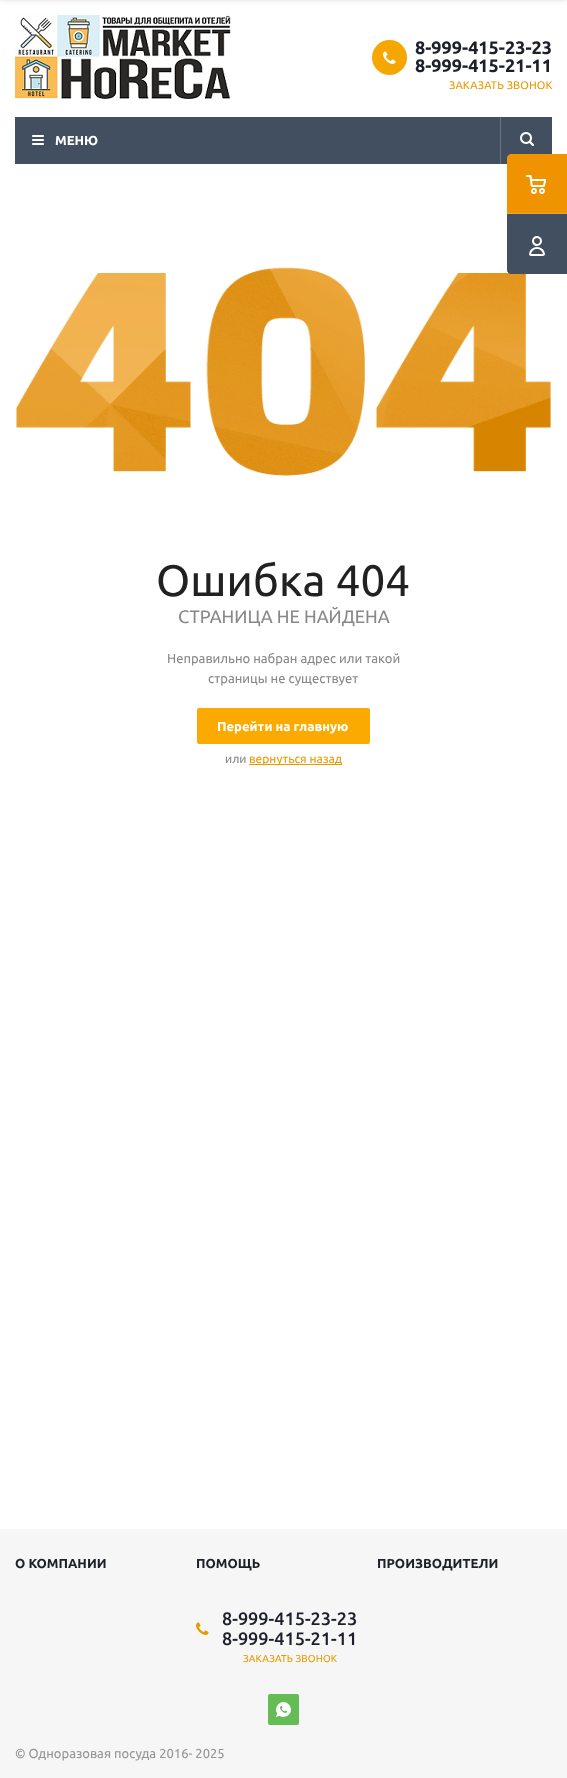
<?xml version="1.0" encoding="UTF-8"?>
<svg xmlns="http://www.w3.org/2000/svg" xmlns:xlink="http://www.w3.org/1999/xlink" width="567" height="1778">
  <rect width="100%" height="100%" fill="#ffffff" />
  <rect y="-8" width="567" height="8" fill="#000000" fill-opacity="0.14" filter="blur(2.5px)" />
  <image x="15" y="15" width="216" height="84" xlink:href="image1.png" />
  <circle cx="389.5" cy="57.5" r="17.5" fill="#f5a600" />
  <image x="383" y="51" width="13" height="13" xlink:href="image2.png" />
  <rect x="501" y="117" width="51" height="47" fill="#424f60" />
  <rect x="16" y="267" width="536" height="209" fill="#f09300" />
  <image x="15" y="234" width="537" height="277" xlink:href="image7.png" />
  <path d="M 511 154 h 56 v 120 h -56 c -2 0 -4 -2 -4 -4 v -112 c 0 -2 2 -4 4 -4 z" fill="#424f60" />
  <path d="M 511 154 h 56 v 60 h -60 v -56 c 0 -2 2 -4 4 -4 z" fill="#f09300" />
  <image x="526" y="175" width="20" height="19" xlink:href="image3.png" />
  <rect x="507" y="213" width="60" height="1" fill="#eea530" />
  <image x="529" y="236" width="16" height="20" xlink:href="image4.png" />
  <rect x="15" y="117" width="485" height="47" fill="#424f60" />
  <image x="32" y="135" width="12" height="10" xlink:href="image5.png" />
  <rect x="500" y="117" width="1" height="47" fill="#687280" />
  <image x="520" y="132" width="14" height="14" xlink:href="image6.png" />
  <rect x="197" y="708" width="173" height="36" rx="2" fill="#faaa00" />
  <rect x="249" y="764" width="93" height="1" fill="#e69c00" />
  <rect y="1529" width="567" height="249" fill="#f6f6f7" />
  <image x="196" y="1622" width="13" height="13" xlink:href="image8.png" />
  <image x="268" y="1694" width="31" height="31" xlink:href="image9.png" />
  <text x="415" y="54" style="font-family: Ubuntu; font-size: 18px; font-weight: bold; fill: #1d2029">8-999-415-23-23</text>
  <text x="415" y="72" style="font-family: Ubuntu; font-size: 18px; font-weight: bold; fill: #1d2029">8-999-415-21-11</text>
  <text x="449" y="89" style="font-family: Ubuntu; font-size: 11px; letter-spacing: 0.1px; fill: #e69c00">ЗАКАЗАТЬ ЗВОНОК</text>
  <text x="55" y="145" style="font-family: Ubuntu; font-size: 13px; font-weight: bold; fill: #ffffff">МЕНЮ</text>
  <text x="156" y="596" style="font-family: Ubuntu; font-size: 44px; fill: #212121">Ошибка 404</text>
  <text x="178" y="623" style="font-family: Ubuntu; font-size: 18px; fill: #888888">СТРАНИЦА НЕ НАЙДЕНА</text>
  <text x="167" y="663" style="font-family: Ubuntu; font-size: 13px; fill: #888888">Неправильно набран адрес или такой</text>
  <text x="208" y="683" style="font-family: Ubuntu; font-size: 13px; fill: #888888">страницы не существует</text>
  <text x="217" y="731" style="font-family: Ubuntu; font-size: 13px; font-weight: bold; fill: #ffffff">Перейти на главную</text>
  <text x="225" y="763" style="font-family: Ubuntu; font-size: 12px; fill: #888888">или</text>
  <text x="249" y="763" style="font-family: Ubuntu; font-size: 12px; fill: #e69c00">вернуться назад</text>
  <text x="15" y="1568" style="font-family: Ubuntu; font-size: 13px; font-weight: bold; fill: #1d2029">О КОМПАНИИ</text>
  <text x="196" y="1568" style="font-family: Ubuntu; font-size: 13px; font-weight: bold; fill: #1d2029">ПОМОЩЬ</text>
  <text x="377" y="1568" style="font-family: Ubuntu; font-size: 13px; font-weight: bold; fill: #1d2029">ПРОИЗВОДИТЕЛИ</text>
  <text x="222" y="1625" style="font-family: Ubuntu; font-size: 18px; font-weight: 500; fill: #1d2029">8-999-415-23-23</text>
  <text x="222" y="1645" style="font-family: Ubuntu; font-size: 18px; font-weight: 500; fill: #1d2029">8-999-415-21-11</text>
  <text x="243" y="1662" style="font-family: Ubuntu; font-size: 10px; letter-spacing: 0.1px; fill: #e69c00">ЗАКАЗАТЬ ЗВОНОК</text>
  <text x="15" y="1758" style="font-family: Ubuntu; font-size: 13px; fill: #959595">© Одноразовая посуда 2016- 2025</text>
</svg>
